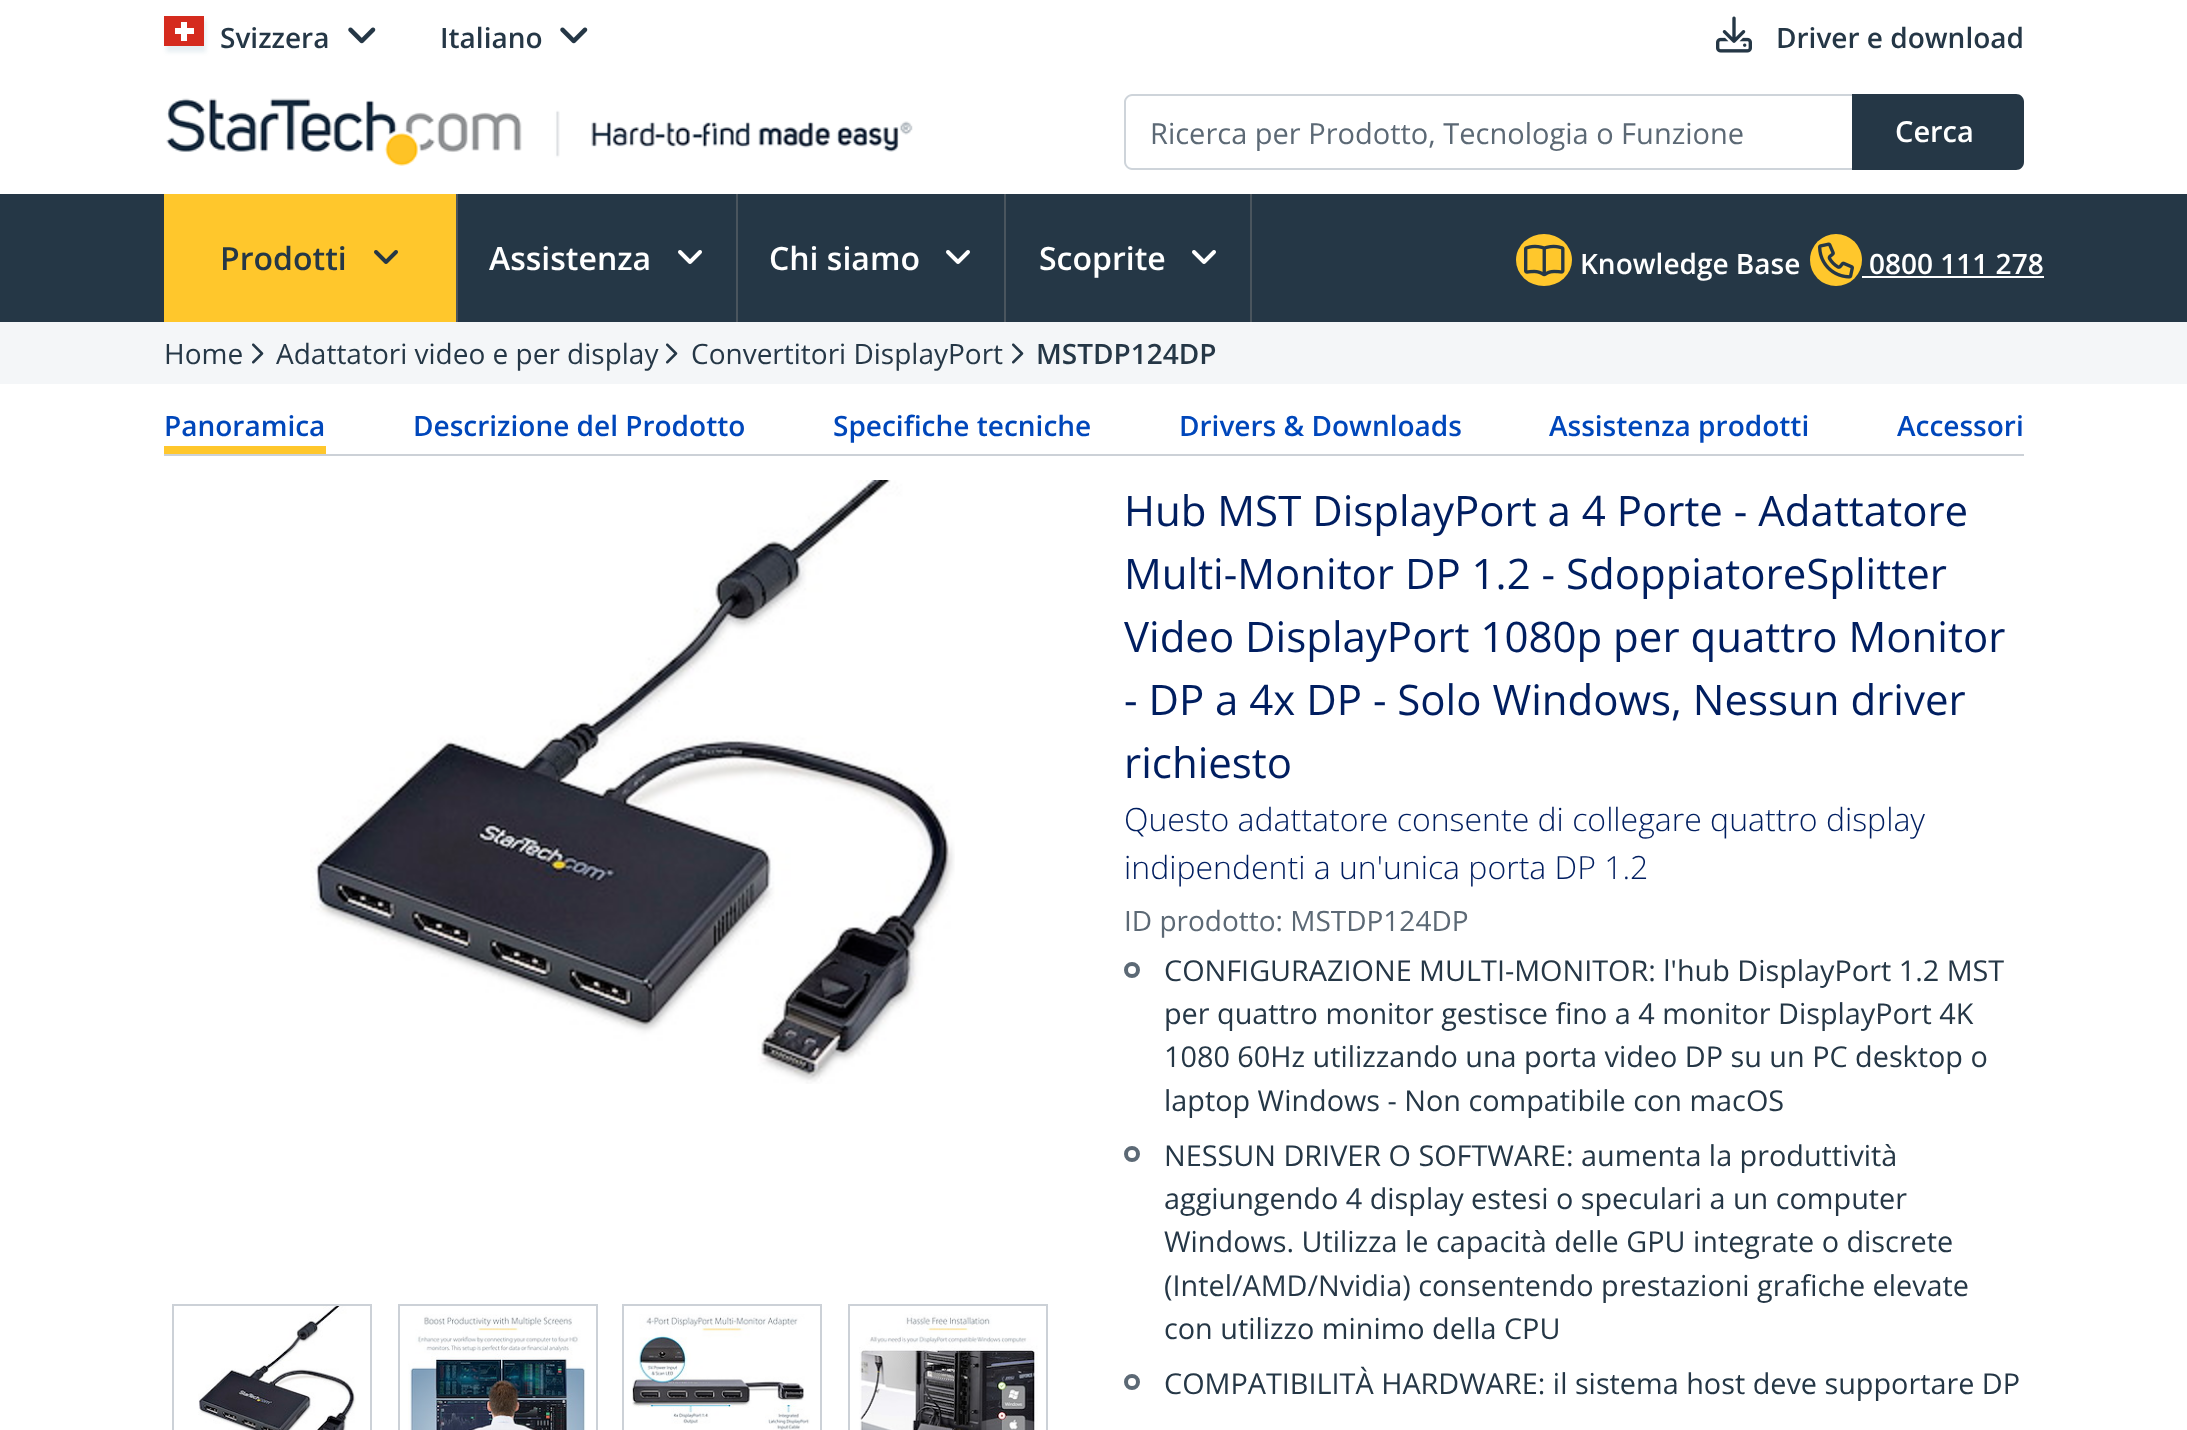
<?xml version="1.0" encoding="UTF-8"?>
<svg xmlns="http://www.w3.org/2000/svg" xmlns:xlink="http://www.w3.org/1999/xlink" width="2187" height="1430">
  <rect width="100%" height="100%" fill="#ffffff" />
  <rect x="166" y="20" width="40" height="32" fill="#0b5780" fill-opacity="0.1" filter="blur(2px)" />
  <rect x="164" y="16" width="40" height="30" fill="#d52b1e" />
  <rect x="175" y="28" width="19" height="6" fill="#ffffff" />
  <rect x="181" y="22" width="6" height="19" fill="#ffffff" />
  <image x="348" y="27" width="28" height="17" xlink:href="image1.png" />
  <image x="560" y="27" width="28" height="17" xlink:href="image1.png" />
  <image x="1716" y="16" width="36" height="37" xlink:href="image2.png" />
  <image x="166" y="98" width="747" height="68" xlink:href="image3.png" />
  <path d="M 1846 94 h 170 c 4.5 0 8 3.5 8 8 v 60 c 0 4.5 -3.5 8 -8 8 h -170 z" fill="#253746" />
  <path d="M 1132 96 h 720 v 72 h -720 c -3.5 0 -6 -2.5 -6 -6 v -60 c 0 -3.5 2.5 -6 6 -6 z" fill="#ffffff" />
  <path d="M 1132 94 h 720 v 76 h -720 c -4 0 -8 -4 -8 -8 v -60 c 0 -4 4 -8 8 -8 z m 0 2 h 720 v 72 h -720 c -3 0 -6 -3 -6 -6 v -60 c 0 -3 3 -6 6 -6 z" fill="#ced4da" fill-rule="evenodd" />
  <rect y="194" width="2187" height="128" fill="#253746" />
  <rect x="164" y="194" width="292" height="128" fill="#ffc72c" />
  <rect x="456" y="194" width="2" height="128" fill="#4a555e" />
  <image x="374" y="250" width="24" height="14" xlink:href="image4.png" />
  <rect x="736" y="194" width="2" height="128" fill="#4a555e" />
  <image x="678" y="250" width="24" height="14" xlink:href="image5.png" />
  <rect x="1004" y="194" width="2" height="128" fill="#4a555e" />
  <image x="946" y="250" width="24" height="14" xlink:href="image5.png" />
  <rect x="1250" y="194" width="2" height="128" fill="#4a555e" />
  <image x="1192" y="250" width="24" height="14" xlink:href="image5.png" />
  <ellipse cx="1544" cy="260" rx="28" ry="26" fill="#ffc72c" />
  <image x="1524" y="244" width="41" height="33" xlink:href="image6.png" />
  <circle cx="1836" cy="260" r="26" fill="#ffc72c" />
  <image x="1818" y="242" width="36" height="37" xlink:href="image7.png" />
  <rect x="1862" y="276" width="182" height="2" fill="#ffffff" />
  <rect y="322" width="2187" height="62" fill="#f4f6f8" />
  <image x="252" y="343" width="12" height="21" xlink:href="image8.png" />
  <image x="666" y="343" width="12" height="21" xlink:href="image8.png" />
  <image x="1012" y="343" width="12" height="21" xlink:href="image8.png" />
  <rect x="164" y="454" width="1860" height="2" fill="#ccd1d7" />
  <rect x="164" y="446" width="162" height="8" fill="#ffc72c" />
  <image x="310" y="480" width="645" height="604" xlink:href="image9.png" />
  <rect x="173" y="1305" width="198" height="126" fill="none" stroke="#ccd1d7" stroke-width="2" />
  <image x="198" y="1306" width="158" height="124" xlink:href="image10.png" />
  <rect x="399" y="1305" width="198" height="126" fill="none" stroke="#ccd1d7" stroke-width="2" />
  <image x="408" y="1314" width="178" height="116" xlink:href="image11.png" />
  <rect x="623" y="1305" width="198" height="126" fill="none" stroke="#ccd1d7" stroke-width="2" />
  <image x="632" y="1314" width="178" height="116" xlink:href="image12.png" />
  <rect x="849" y="1305" width="198" height="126" fill="none" stroke="#ccd1d7" stroke-width="2" />
  <image x="859" y="1314" width="179" height="116" xlink:href="image13.png" />
  <circle cx="1132" cy="970" r="6" fill="none" stroke="#5c6975" stroke-width="4" />
  <circle cx="1132" cy="1154" r="6" fill="none" stroke="#5c6975" stroke-width="4" />
  <circle cx="1132" cy="1382" r="6" fill="none" stroke="#5c6975" stroke-width="4" />
  <text x="220" y="48" style="font-family: Open Sans; font-size: 28px; font-weight: 600; fill: #253746">Svizzera</text>
  <text x="440" y="48" style="font-family: Open Sans; font-size: 28px; font-weight: 600; fill: #253746">Italiano</text>
  <text x="1776" y="48" style="font-family: Open Sans; font-size: 28px; font-weight: 600; fill: #253746">Driver e download</text>
  <text x="1150" y="144" style="font-family: Open Sans; font-size: 29px; fill: #5c6975">Ricerca per Prodotto, Tecnologia o Funzione</text>
  <text x="1895" y="142" style="font-family: Open Sans; font-size: 29px; font-weight: 600; fill: #ffffff">Cerca</text>
  <text x="220" y="270" style="font-family: Open Sans; font-size: 32px; font-weight: 600; fill: #253746">Prodotti</text>
  <text x="489" y="270" style="font-family: Open Sans; font-size: 32px; font-weight: 600; fill: #ffffff">Assistenza</text>
  <text x="769" y="270" style="font-family: Open Sans; font-size: 32px; font-weight: 600; fill: #ffffff">Chi siamo</text>
  <text x="1039" y="270" style="font-family: Open Sans; font-size: 32px; font-weight: 600; fill: #ffffff">Scoprite</text>
  <text x="1580" y="274" style="font-family: Open Sans; font-size: 28px; font-weight: 600; fill: #ffffff">Knowledge Base</text>
  <text x="1869" y="274" style="font-family: Open Sans; font-size: 28px; font-weight: 600; fill: #ffffff">0800 111 278</text>
  <text x="164" y="364" style="font-family: Open Sans; font-size: 28px; fill: #253746">Home</text>
  <text x="276" y="364" style="font-family: Open Sans; font-size: 28px; fill: #253746">Adattatori video e per display</text>
  <text x="691" y="364" style="font-family: Open Sans; font-size: 28px; fill: #253746">Convertitori DisplayPort</text>
  <text x="1036" y="364" style="font-family: Open Sans; font-size: 28px; font-weight: 600; fill: #253746">MSTDP124DP</text>
  <text x="164" y="436" style="font-family: Open Sans; font-size: 28px; font-weight: 600; fill: #0047bb">Panoramica</text>
  <text x="413" y="436" style="font-family: Open Sans; font-size: 28px; font-weight: 600; fill: #0047bb">Descrizione del Prodotto</text>
  <text x="833" y="436" style="font-family: Open Sans; font-size: 28px; font-weight: 600; fill: #0047bb">Specifiche tecniche</text>
  <text x="1179" y="436" style="font-family: Open Sans; font-size: 28px; font-weight: 600; fill: #0047bb">Drivers &amp; Downloads</text>
  <text x="1549" y="436" style="font-family: Open Sans; font-size: 28px; font-weight: 600; fill: #0047bb">Assistenza prodotti</text>
  <text x="1897" y="436" style="font-family: Open Sans; font-size: 28px; font-weight: 600; fill: #0047bb">Accessori</text>
  <text x="1124" y="526" style="font-family: Open Sans; font-size: 42px; fill: #001e60">Hub MST DisplayPort a 4 Porte - Adattatore</text>
  <text x="1124" y="589" style="font-family: Open Sans; font-size: 42px; fill: #001e60">Multi-Monitor DP 1.2 - SdoppiatoreSplitter</text>
  <text x="1124" y="652" style="font-family: Open Sans; font-size: 42px; fill: #001e60">Video DisplayPort 1080p per quattro Monitor</text>
  <text x="1124" y="715" style="font-family: Open Sans; font-size: 42px; fill: #001e60">- DP a 4x DP - Solo Windows, Nessun driver</text>
  <text x="1124" y="778" style="font-family: Open Sans; font-size: 42px; fill: #001e60">richiesto</text>
  <text x="1124" y="831" style="font-family: Open Sans; font-size: 32px; font-weight: 300; fill: #001e60">Questo adattatore consente di collegare quattro display</text>
  <text x="1124" y="879" style="font-family: Open Sans; font-size: 32px; font-weight: 300; fill: #001e60">indipendenti a un'unica porta DP 1.2</text>
  <text x="1124" y="931" style="font-family: Open Sans; font-size: 28px; fill: #5c6975">ID prodotto: MSTDP124DP</text>
  <text x="1164" y="981" style="font-family: Open Sans; font-size: 28.8px; fill: #253746">CONFIGURAZIONE MULTI-MONITOR: l'hub DisplayPort 1.2 MST</text>
  <text x="1164" y="1024" style="font-family: Open Sans; font-size: 28.8px; fill: #253746">per quattro monitor gestisce fino a 4 monitor DisplayPort 4K</text>
  <text x="1164" y="1067" style="font-family: Open Sans; font-size: 28.8px; fill: #253746">1080 60Hz utilizzando una porta video DP su un PC desktop o</text>
  <text x="1164" y="1111" style="font-family: Open Sans; font-size: 28.8px; fill: #253746">laptop Windows - Non compatibile con macOS</text>
  <text x="1164" y="1166" style="font-family: Open Sans; font-size: 28.8px; fill: #253746">NESSUN DRIVER O SOFTWARE: aumenta la produttività</text>
  <text x="1164" y="1209" style="font-family: Open Sans; font-size: 28.8px; fill: #253746">aggiungendo 4 display estesi o speculari a un computer</text>
  <text x="1164" y="1252" style="font-family: Open Sans; font-size: 28.8px; fill: #253746">Windows. Utilizza le capacità delle GPU integrate o discrete</text>
  <text x="1164" y="1296" style="font-family: Open Sans; font-size: 28.8px; fill: #253746">(Intel/AMD/Nvidia) consentendo prestazioni grafiche elevate</text>
  <text x="1164" y="1339" style="font-family: Open Sans; font-size: 28.8px; fill: #253746">con utilizzo minimo della CPU</text>
  <text x="1164" y="1394" style="font-family: Open Sans; font-size: 28.8px; fill: #253746">COMPATIBILITÀ HARDWARE: il sistema host deve supportare DP</text>
</svg>
